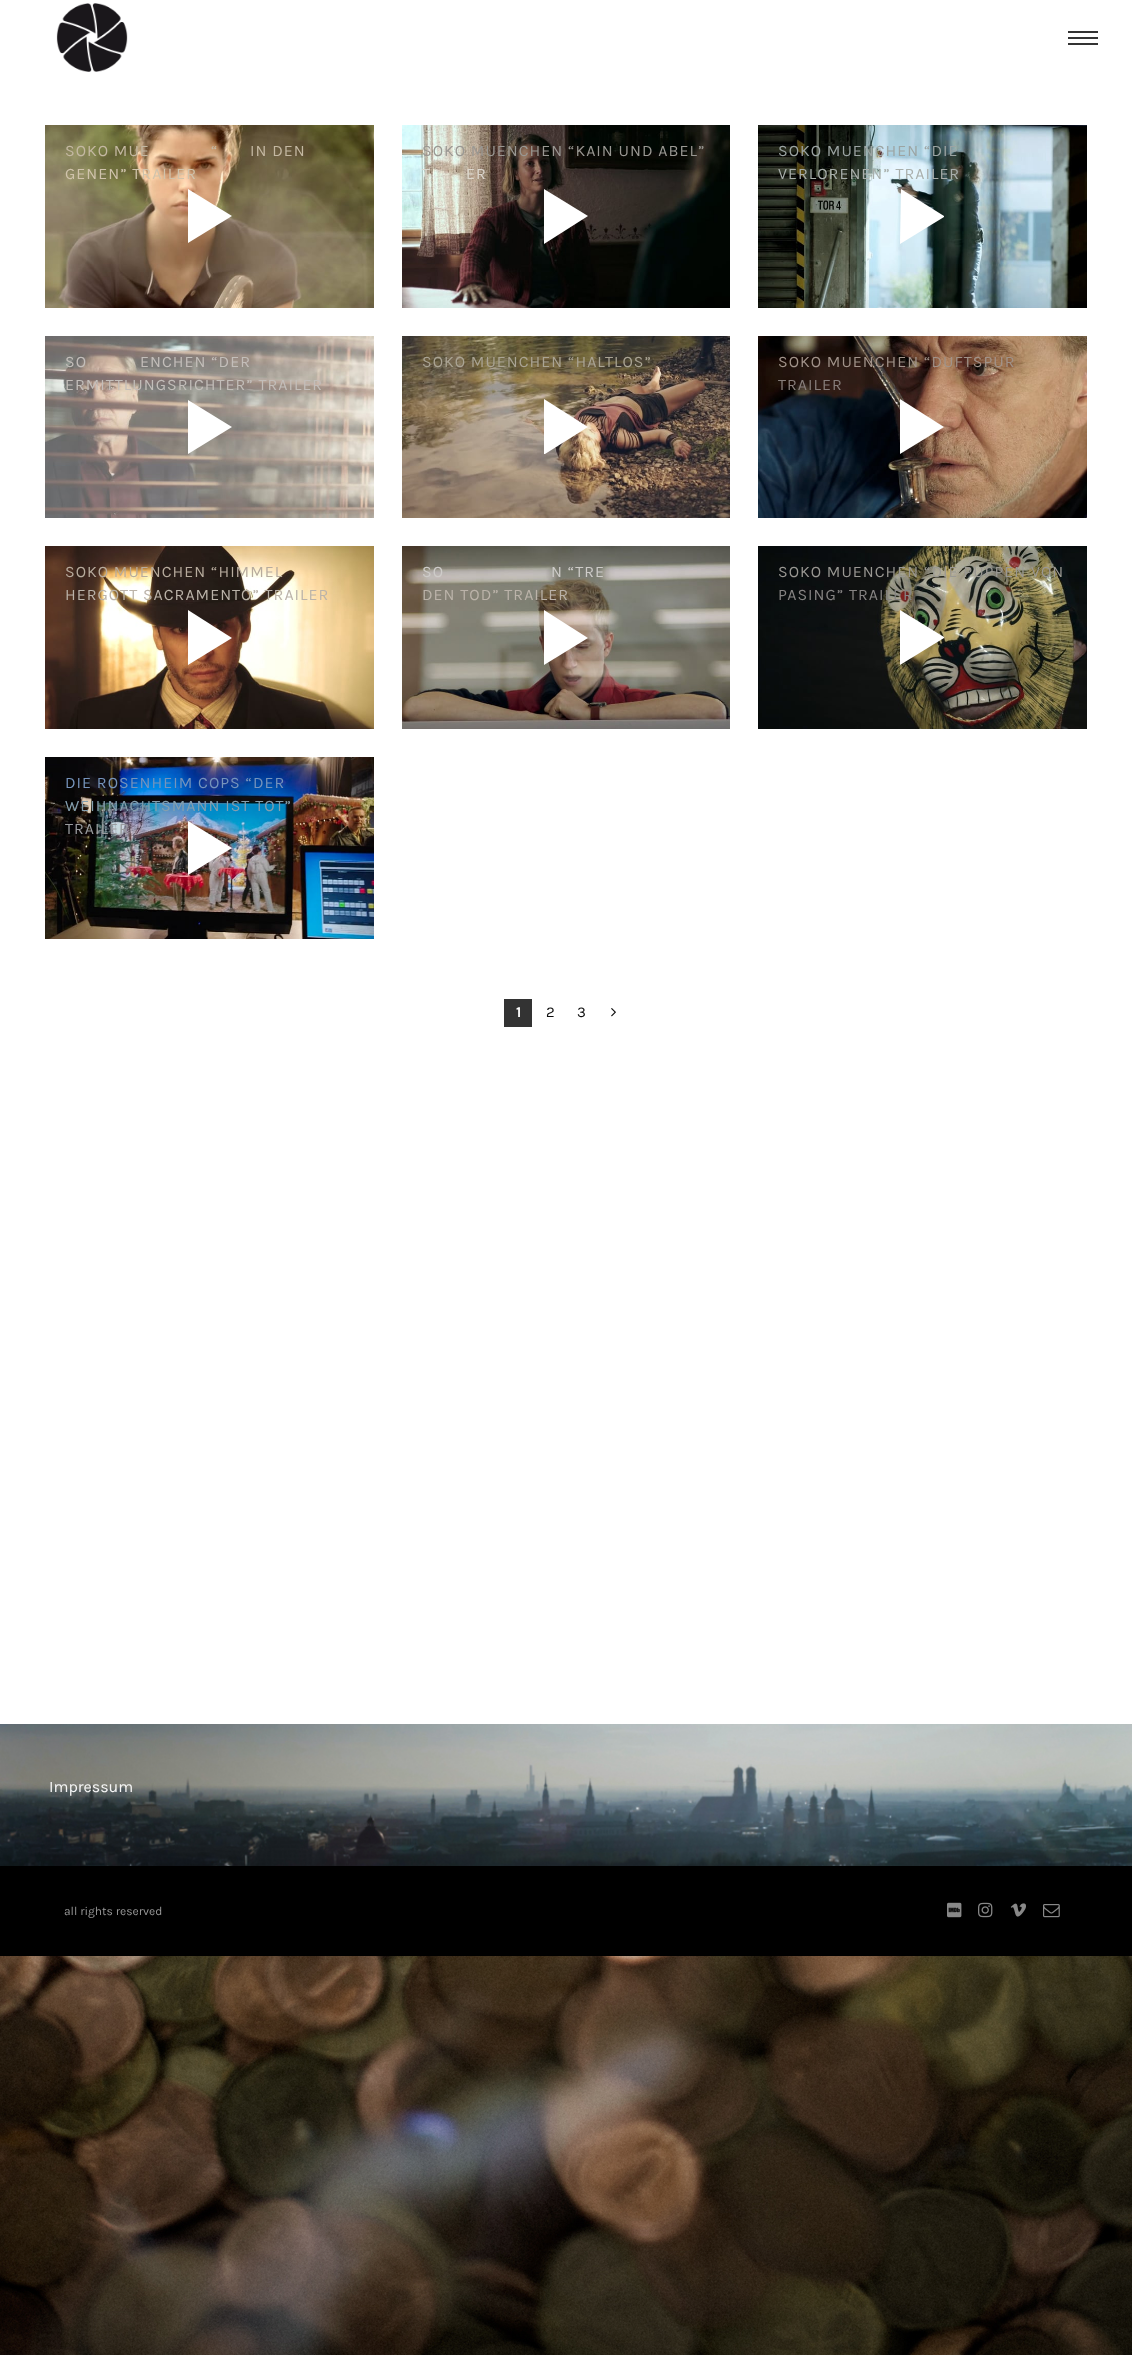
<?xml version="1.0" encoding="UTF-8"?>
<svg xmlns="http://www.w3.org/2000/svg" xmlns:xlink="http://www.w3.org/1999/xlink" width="1132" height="2355">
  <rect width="100%" height="100%" fill="#ffffff" />
  <image x="0" y="1956" width="1132" height="399" xlink:href="image1.png" />
  <image x="56" y="3" width="72" height="69" xlink:href="image2.png" />
  <rect x="1068" y="31" width="30" height="2" fill="#333333" />
  <rect x="1068" y="37" width="30" height="2" fill="#333333" />
  <rect x="1068" y="43" width="30" height="2" fill="#333333" />
  <image x="45" y="125" width="329" height="183" xlink:href="image3.png" />
  <path d="M 188 189 v 54 l 44 -27 z" fill="#ffffff" />
  <image x="402" y="125" width="328" height="183" xlink:href="image4.png" />
  <path d="M 544 189 v 55 l 44 -28 z" fill="#ffffff" />
  <image x="758" y="125" width="329" height="183" xlink:href="image5.png" />
  <path d="M 901 189 l -1 55 l 44 -27 v -1 z" fill="#ffffff" />
  <image x="45" y="336" width="329" height="182" xlink:href="image6.png" />
  <path d="M 188 454 v -54 l 44 27 z" fill="#ffffff" />
  <image x="402" y="336" width="328" height="182" xlink:href="image7.png" />
  <path d="M 545 454 h -1 v -55 l 44 28 z" fill="#ffffff" />
  <image x="758" y="336" width="329" height="182" xlink:href="image8.png" />
  <path d="M 900 399 l 44 28 l -44 27 z" fill="#ffffff" />
  <image x="45" y="546" width="329" height="183" xlink:href="image9.png" />
  <path d="M 188 665 v -55 l 44 28 z" fill="#ffffff" />
  <image x="402" y="546" width="328" height="183" xlink:href="image10.png" />
  <path d="M 544 665 v -55 l 44 28 z" fill="#ffffff" />
  <image x="758" y="546" width="329" height="183" xlink:href="image11.png" />
  <path d="M 900 610 l 44 27 v 1 l -44 27 z" fill="#ffffff" />
  <image x="45" y="757" width="329" height="182" xlink:href="image12.png" />
  <path d="M 188 821 v 54 l 44 -27 z" fill="#ffffff" />
  <rect x="504" y="999" width="28" height="28" fill="#333333" />
  <image x="611" y="1008" width="5" height="9" xlink:href="image13.png" />
  <image x="0" y="1724" width="1132" height="142" xlink:href="image14.png" />
  <rect y="1866" width="1132" height="90" fill="#000000" />
  <image x="947" y="1902" width="15" height="16" xlink:href="image15.png" />
  <image x="978" y="1902" width="15" height="16" xlink:href="image16.png" />
  <image x="1010" y="1903" width="16" height="14" xlink:href="image17.png" />
  <image x="1043" y="1904" width="17" height="14" xlink:href="image18.png" />
  <text x="65" y="156" style="font-family: Karla; font-size: 16px; letter-spacing: 1px; fill: #c4b8a2">SOKO MUE</text>
  <text x="211" y="156" style="font-family: Karla; font-size: 16px; letter-spacing: 1px; fill: #c4b8a2">“</text>
  <text x="250" y="156" style="font-family: Karla; font-size: 16px; letter-spacing: 1px; fill: #c4b8a2">IN DEN</text>
  <text x="65" y="179" style="font-family: Karla; font-size: 16px; letter-spacing: 1px; fill: #d0c3ac">GENEN” TRAILER</text>
  <text x="422" y="156" style="font-family: Karla; font-size: 16px; letter-spacing: 1px; fill: #9a9893">SOKO MUENCHEN “KAIN UND ABEL”</text>
  <text x="422" y="179" style="font-family: Karla; font-size: 16px; letter-spacing: 1px; fill: #dcd7ce">T</text>
  <text x="466" y="179" style="font-family: Karla; font-size: 16px; letter-spacing: 1px; fill: #dcd7ce">ER</text>
  <text x="778" y="156" style="font-family: Karla; font-size: 16px; letter-spacing: 1px; fill: #9ca4a3">SOKO MUENCHEN “DIE</text>
  <text x="778" y="179" style="font-family: Karla; font-size: 16px; letter-spacing: 1px; fill: #a9afac">VERLORENEN” TRAILER</text>
  <text x="65" y="367" style="font-family: Karla; font-size: 16px; letter-spacing: 1px; fill: #c3beba">SO</text>
  <text x="140" y="367" style="font-family: Karla; font-size: 16px; letter-spacing: 1px; fill: #c3beba">ENCHEN “DER</text>
  <text x="65" y="390" style="font-family: Karla; font-size: 16px; letter-spacing: 1px; fill: #c3beba">ERMITTLUNGSRICHTER” TRAILER</text>
  <text x="422" y="367" style="font-family: Karla; font-size: 16px; letter-spacing: 1px; fill: #aaa494">SOKO MUENCHEN “HALTLOS”</text>
  <text x="778" y="367" style="font-family: Karla; font-size: 16px; letter-spacing: 1px; fill: #a1938a">SOKO MUENCHEN “DUFTSPUR</text>
  <text x="778" y="390" style="font-family: Karla; font-size: 16px; letter-spacing: 1px; fill: #877e7b">TRAILER</text>
  <text x="65" y="577" style="font-family: Karla; font-size: 16px; letter-spacing: 1px; fill: #b7ab9d">SOKO MUENCHEN “HIMMEL</text>
  <text x="65" y="600" style="font-family: Karla; font-size: 16px; letter-spacing: 1px; fill: #bbb3a9">HERGOTT SACRAMENTO” TRAILER</text>
  <text x="422" y="577" style="font-family: Karla; font-size: 16px; letter-spacing: 1px; fill: #ceccc9">SO</text>
  <text x="551" y="577" style="font-family: Karla; font-size: 16px; letter-spacing: 1px; fill: #ceccc9">N “TRE</text>
  <text x="422" y="600" style="font-family: Karla; font-size: 16px; letter-spacing: 1px; fill: #bbb3a9">DEN TOD” TRAILER</text>
  <text x="778" y="577" style="font-family: Karla; font-size: 16px; letter-spacing: 1px; fill: #9a9893">SOKO MUENCHEN “DIE PUPPEN VON</text>
  <text x="778" y="600" style="font-family: Karla; font-size: 16px; letter-spacing: 1px; fill: #868483">PASING” TRAILER</text>
  <text x="65" y="788" style="font-family: Karla; font-size: 16px; letter-spacing: 1px; fill: #7694bc">DIE ROSENHEIM COPS “DER</text>
  <text x="65" y="811" style="font-family: Karla; font-size: 16px; letter-spacing: 1px; fill: #859fae">WEIHNACHTSMANN IST TOT”</text>
  <text x="65" y="834" style="font-family: Karla; font-size: 16px; letter-spacing: 1px; fill: #9a9c9f">TRAILER</text>
  <text x="516" y="1017" style="font-family: Karla; font-size: 15px; font-weight: bold; fill: #ffffff">1</text>
  <text x="546" y="1017" style="font-family: Karla; font-size: 15px; fill: #0d0d0d">2</text>
  <text x="577" y="1017" style="font-family: Karla; font-size: 15px; fill: #0d0d0d">3</text>
  <text x="49" y="1792" style="font-family: Karla; font-size: 16px; fill: #f7f7f7">Impressum</text>
  <text x="64" y="1915" style="font-family: Karla; font-size: 12px; fill: #999999">all rights reserved</text>
</svg>
